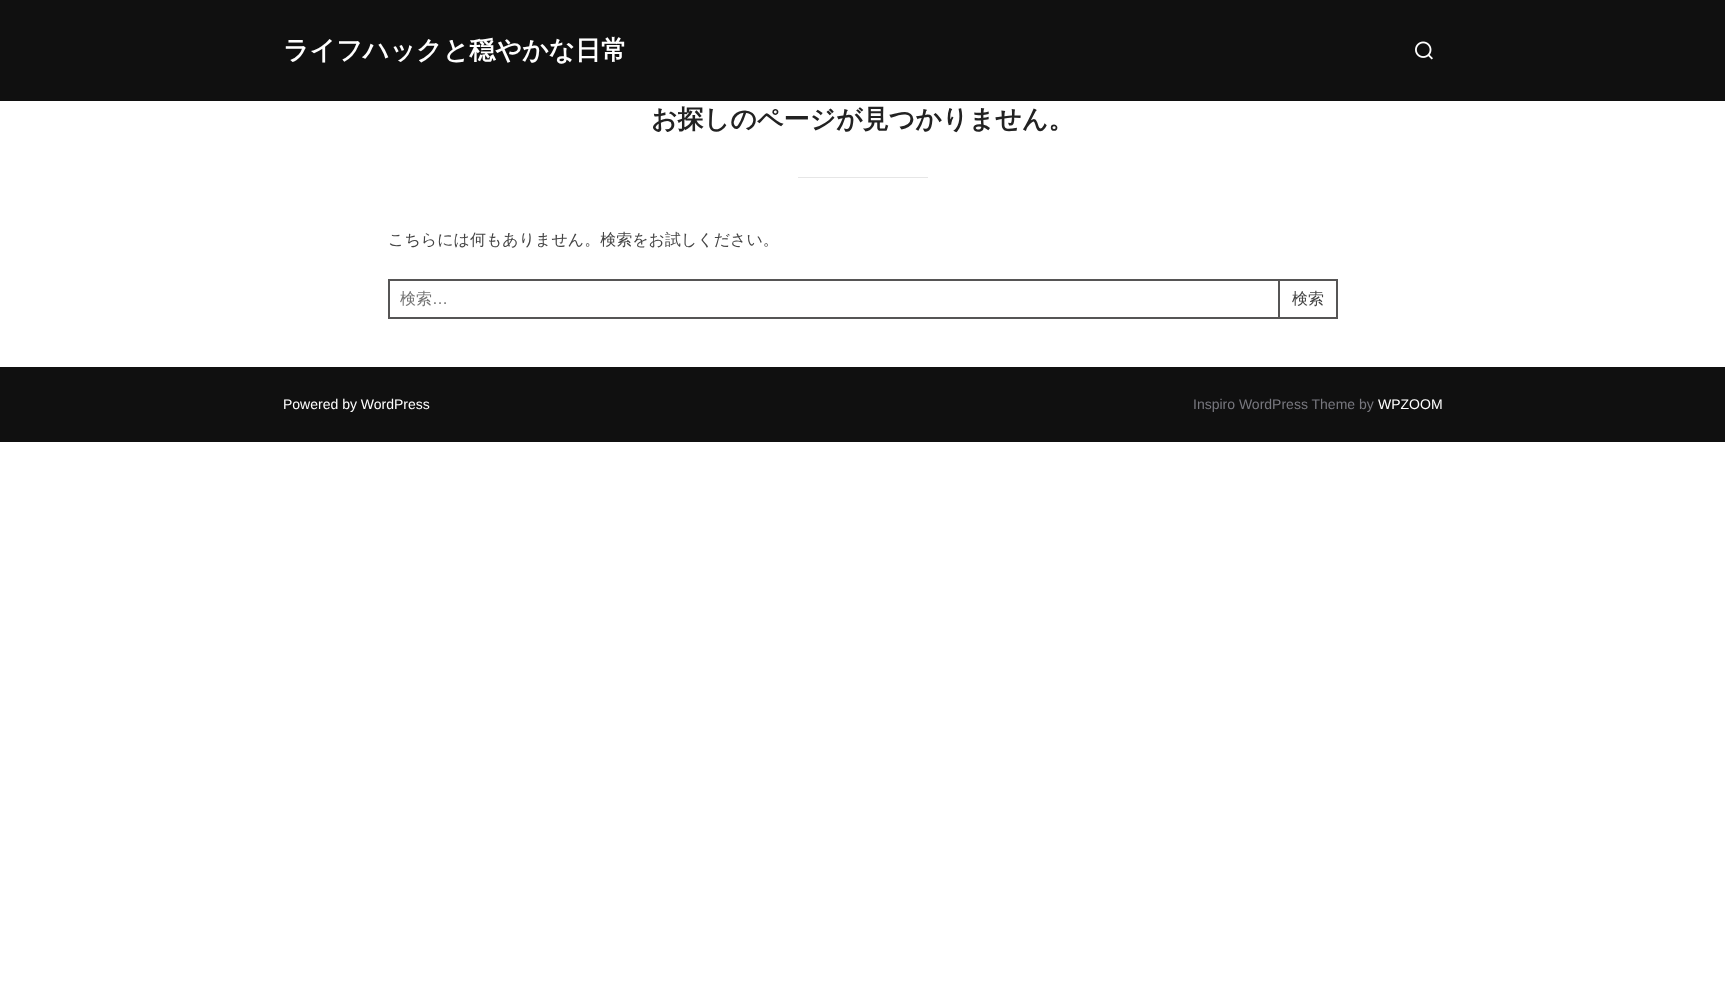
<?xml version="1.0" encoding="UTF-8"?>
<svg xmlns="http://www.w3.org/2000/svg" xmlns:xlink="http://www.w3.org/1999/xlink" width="1725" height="1000">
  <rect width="100%" height="100%" fill="#ffffff" />
  <rect width="1725" height="101" fill="#101010" />
  <image x="1415" y="41" width="18" height="19" xlink:href="image1.png" />
  <rect x="798" y="177" width="130" height="1" fill="#e6e6e6" />
  <rect x="389" y="280" width="948" height="38" fill="none" stroke="#565555" stroke-width="2" />
  <rect x="1279" y="280" width="58" height="38" fill="none" stroke="#565555" stroke-width="2" />
  <rect y="367" width="1725" height="75" fill="#101010" />
  <text x="283" y="59" style="font-family: WenQuanYi Zen Hei; font-size: 26px; font-weight: bold; fill: #ffffff">ライフハックと穏やかな日常</text>
  <text x="651" y="128" style="font-family: WenQuanYi Zen Hei; font-size: 26px; font-weight: bold; fill: #222222">お探しのページが見つかりません。</text>
  <text x="388" y="245" style="font-family: WenQuanYi Zen Hei; font-size: 16px; font-weight: 500; fill: #444444">こちらには何もありません。検索をお試しください。</text>
  <text x="400" y="304" style="font-family: WenQuanYi Zen Hei; font-size: 16px; font-weight: 500; fill: #757575">検索</text>
  <text x="432" y="304" style="font-family: Liberation Sans; font-size: 16px; fill: #757575">…</text>
  <text x="1292" y="304" style="font-family: WenQuanYi Zen Hei; font-size: 16px; font-weight: 500; fill: #444444">検索</text>
  <text x="283" y="409" style="font-family: Liberation Sans; font-size: 14px; fill: #ffffff">Powered by WordPress</text>
  <text x="1193" y="409" style="font-family: Liberation Sans; font-size: 14px; fill: #78787f">Inspiro WordPress Theme by</text>
  <text x="1378" y="409" style="font-family: Liberation Sans; font-size: 14px; fill: #ffffff">WPZOOM</text>
</svg>
